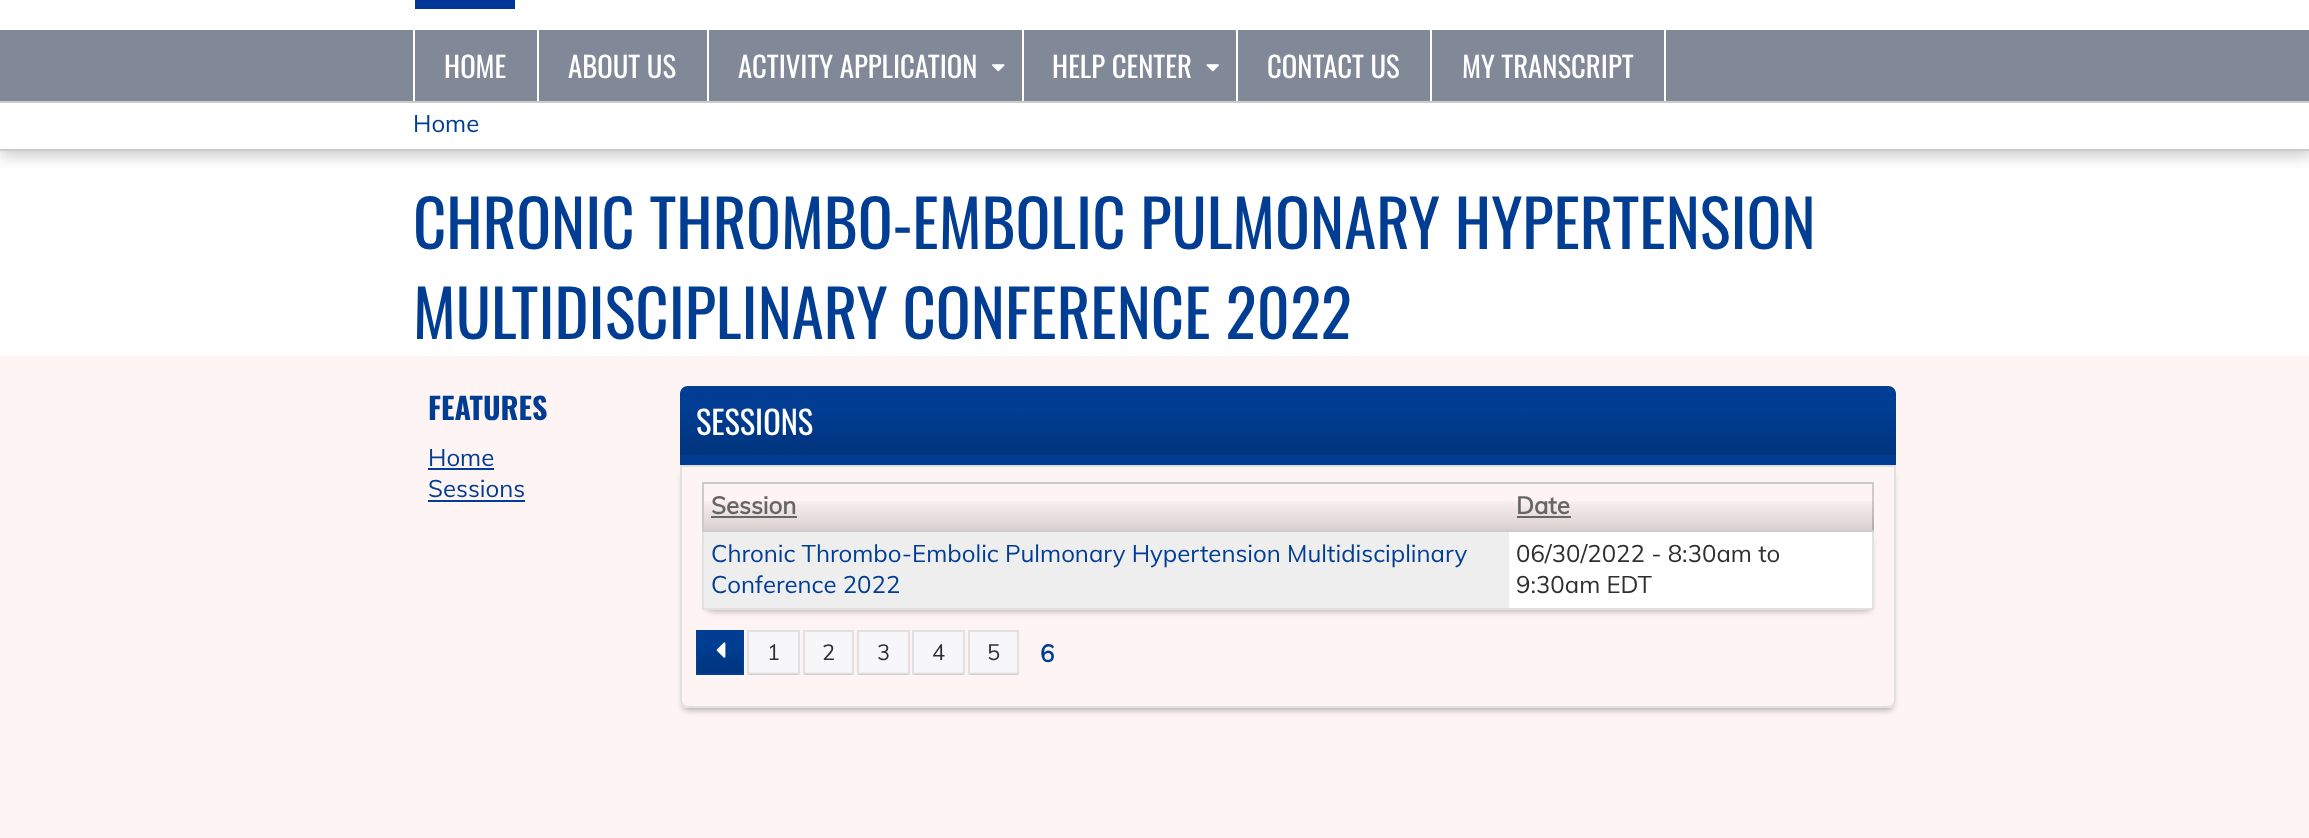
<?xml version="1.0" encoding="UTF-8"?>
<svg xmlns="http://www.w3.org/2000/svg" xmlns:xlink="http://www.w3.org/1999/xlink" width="2309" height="838">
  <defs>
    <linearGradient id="g1" gradientUnits="userSpaceOnUse" x1="1288" y1="455" x2="1288" y2="386"><stop offset="0" stop-color="#000000" stop-opacity="0.15" /><stop offset="0.7" stop-color="#000000" stop-opacity="0" /></linearGradient>
    <clipPath id="clip1"><path d="M 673 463 h 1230 v 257 h -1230 z m 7 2 h 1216 v 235 c 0 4.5 -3.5 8 -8 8 h -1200 c -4.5 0 -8 -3.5 -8 -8 z" clip-rule="evenodd" /></clipPath>
    <linearGradient id="g2" gradientUnits="userSpaceOnUse" x1="1106" y1="530" x2="1106" y2="482"><stop offset="0" stop-color="#000000" stop-opacity="0.15" /><stop offset="0.7" stop-color="#000000" stop-opacity="0" /></linearGradient>
    <linearGradient id="g3" gradientUnits="userSpaceOnUse" x1="1691" y1="530" x2="1691" y2="482"><stop offset="0" stop-color="#000000" stop-opacity="0.15" /><stop offset="0.7" stop-color="#000000" stop-opacity="0" /></linearGradient>
    <linearGradient id="g4" gradientUnits="userSpaceOnUse" x1="720" y1="674" x2="720" y2="632"><stop offset="0" stop-color="#00347d" /><stop offset="0.7" stop-color="#003d93" /></linearGradient>
    <linearGradient id="g5" gradientUnits="userSpaceOnUse" x1="773" y1="675" x2="773" y2="632"><stop offset="0" stop-color="#c6c6c8" /><stop offset="0.07" stop-color="#f7f7fa" /></linearGradient>
    <linearGradient id="g6" gradientUnits="userSpaceOnUse" x1="828" y1="675" x2="828" y2="632"><stop offset="0" stop-color="#c6c6c8" /><stop offset="0.07" stop-color="#f7f7fa" /></linearGradient>
    <linearGradient id="g7" gradientUnits="userSpaceOnUse" x1="883" y1="675" x2="883" y2="632"><stop offset="0" stop-color="#c6c6c8" /><stop offset="0.07" stop-color="#f7f7fa" /></linearGradient>
    <linearGradient id="g8" gradientUnits="userSpaceOnUse" x1="938" y1="675" x2="938" y2="632"><stop offset="0" stop-color="#c6c6c8" /><stop offset="0.07" stop-color="#f7f7fa" /></linearGradient>
    <linearGradient id="g9" gradientUnits="userSpaceOnUse" x1="993" y1="675" x2="993" y2="632"><stop offset="0" stop-color="#c6c6c8" /><stop offset="0.07" stop-color="#f7f7fa" /></linearGradient>
  </defs>
  <rect width="100%" height="100%" fill="#fff4f4" />
  <rect width="2309" height="30" fill="#ffffff" />
  <rect x="415" width="100" height="9" fill="#003698" />
  <rect y="151" width="2309" height="205" fill="#ffffff" />
  <rect x="-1" y="104" width="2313" height="52" fill="#000000" fill-opacity="0.2" filter="blur(7.5px)" />
  <rect y="30" width="2309" height="71" fill="#818898" />
  <rect x="537" y="30" width="2" height="71" fill="#ffffff" />
  <rect x="413" y="30" width="2" height="71" fill="#ffffff" />
  <rect x="707" y="30" width="2" height="71" fill="#ffffff" />
  <rect x="1022" y="30" width="2" height="71" fill="#ffffff" />
  <image x="992" y="64" width="13" height="8" xlink:href="image1.png" />
  <rect x="1236" y="30" width="2" height="71" fill="#ffffff" />
  <image x="1206" y="64" width="13" height="8" xlink:href="image2.png" />
  <rect x="1430" y="30" width="2" height="71" fill="#ffffff" />
  <rect x="1664" y="30" width="2" height="71" fill="#ffffff" />
  <rect y="103" width="2309" height="46" fill="#ffffff" />
  <rect y="101" width="2309" height="2" fill="#cccccc" />
  <rect y="149" width="2309" height="2" fill="#cccccc" />
  <rect x="428" y="468" width="66" height="2" fill="#003d93" />
  <rect x="428" y="500" width="97" height="2" fill="#003d93" />
  <path d="M 688 386 h 1200 c 4.5 0 8 3.5 8 8 v 71 h -1216 v -71 c 0 -4.5 3.5 -8 8 -8 z" fill="#003d93" />
  <rect x="680" y="414" width="1216" height="41" fill="url(#g1)" />
  <g clip-path="url(#clip1)">
    <rect x="683" y="473" width="1210" height="237" rx="5" fill="#000000" fill-opacity="0.3" filter="blur(3px)" />
  </g>
  <path d="M 681 466 h 1214 v 234 c 0 4 -3 7 -7 7 h -1200 c -4 0 -7 -3 -7 -7 z" fill="none" stroke="#e1e1e1" stroke-width="2" />
  <rect x="702" y="482" width="1172" height="2" fill="#cccccc" />
  <rect x="707" y="537" width="1164" height="74" rx="5" fill="#000000" fill-opacity="0.3" filter="blur(3px)" />
  <rect x="1872" y="530" width="2" height="79" fill="#e1e1e1" />
  <rect x="1872" y="482" width="2" height="49" fill="#cccccc" />
  <rect x="702" y="608" width="1172" height="2" fill="#e1e1e1" />
  <rect x="702" y="530" width="2" height="79" fill="#e1e1e1" />
  <rect x="702" y="530" width="1172" height="2" fill="#cccccc" />
  <rect x="702" y="482" width="2" height="49" fill="#cccccc" />
  <rect x="704" y="501" width="805" height="29" fill="url(#g2)" />
  <rect x="711" y="516" width="86" height="2" fill="#666666" />
  <rect x="1509" y="501" width="365" height="29" fill="url(#g3)" />
  <rect x="1517" y="516" width="54" height="2" fill="#666666" />
  <rect x="1509" y="532" width="363" height="76" fill="#ffffff" />
  <rect x="704" y="532" width="805" height="76" fill="#eeeeee" />
  <rect x="698" y="632" width="44" height="41" fill="url(#g4)" />
  <rect x="697" y="631" width="46" height="43" fill="none" stroke="#003d93" stroke-width="2" />
  <image x="716" y="642" width="10" height="16" xlink:href="image3.png" />
  <rect x="749" y="632" width="49" height="43" fill="url(#g5)" />
  <rect x="747" y="630" width="53" height="2" fill="#e1e1e1" />
  <rect x="798" y="630" width="2" height="45" fill="#e1e1e1" />
  <rect x="747" y="630" width="2" height="45" fill="#e1e1e1" />
  <rect x="805" y="632" width="47" height="43" fill="url(#g6)" />
  <rect x="803" y="630" width="51" height="2" fill="#e1e1e1" />
  <rect x="852" y="630" width="2" height="45" fill="#e1e1e1" />
  <rect x="803" y="630" width="2" height="45" fill="#e1e1e1" />
  <rect x="859" y="632" width="49" height="43" fill="url(#g7)" />
  <rect x="857" y="630" width="52" height="2" fill="#e1e1e1" />
  <rect x="908" y="630" width="2" height="45" fill="#e1e1e1" />
  <rect x="857" y="630" width="2" height="45" fill="#e1e1e1" />
  <rect x="914" y="632" width="49" height="43" fill="url(#g8)" />
  <rect x="912" y="630" width="53" height="2" fill="#e1e1e1" />
  <rect x="963" y="630" width="2" height="45" fill="#e1e1e1" />
  <rect x="912" y="630" width="2" height="45" fill="#e1e1e1" />
  <rect x="970" y="632" width="47" height="43" fill="url(#g9)" />
  <rect x="968" y="630" width="51" height="2" fill="#e1e1e1" />
  <rect x="1017" y="630" width="2" height="45" fill="#e1e1e1" />
  <rect x="968" y="630" width="2" height="45" fill="#e1e1e1" />
  <text x="444" y="78" style="font-family: Oswald; font-size: 28.75px; fill: #ffffff">HOME</text>
  <text x="568" y="78" style="font-family: Oswald; font-size: 28.75px; fill: #ffffff">ABOUT US</text>
  <text x="738" y="78" style="font-family: Oswald; font-size: 28.75px; fill: #ffffff">ACTIVITY APPLICATION</text>
  <text x="1052" y="78" style="font-family: Oswald; font-size: 28.75px; fill: #ffffff">HELP CENTER</text>
  <text x="1267" y="78" style="font-family: Oswald; font-size: 28.75px; fill: #ffffff">CONTACT US</text>
  <text x="1462" y="78" style="font-family: Oswald; font-size: 28.75px; fill: #ffffff">MY TRANSCRIPT</text>
  <text x="413" y="132" style="font-family: Muli; font-size: 24px; fill: #003d93">Home</text>
  <text x="413" y="249" style="font-family: Oswald; font-size: 64.8px; fill: #003d93">CHRONIC THROMBO-EMBOLIC PULMONARY HYPERTENSION</text>
  <text x="413" y="339" style="font-family: Oswald; font-size: 64.8px; fill: #003d93">MULTIDISCIPLINARY CONFERENCE 2022</text>
  <text x="428" y="420" style="font-family: Oswald; font-size: 30px; font-weight: bold; fill: #003d93">FEATURES</text>
  <text x="428" y="466" style="font-family: Muli; font-size: 24px; fill: #003d93">Home</text>
  <text x="428" y="497" style="font-family: Muli; font-size: 24px; fill: #003d93">Sessions</text>
  <text x="696" y="435" style="font-family: Oswald; font-size: 32.5px; fill: #ffffff">SESSIONS</text>
  <text x="711" y="514" style="font-family: Muli; font-size: 24px; font-weight: bold; fill: #666666">Session</text>
  <text x="1516" y="514" style="font-family: Muli; font-size: 24px; font-weight: bold; fill: #666666">Date</text>
  <text x="711" y="562" style="font-family: Muli; font-size: 24px; fill: #003d93">Chronic Thrombo-Embolic Pulmonary Hypertension Multidisciplinary</text>
  <text x="711" y="593" style="font-family: Muli; font-size: 24px; fill: #003d93">Conference 2022</text>
  <text x="1516" y="562" style="font-family: Muli; font-size: 24px; fill: #2f2f2f">06/30/2022 - 8:30am to</text>
  <text x="1516" y="593" style="font-family: Muli; font-size: 24px; fill: #2f2f2f">9:30am EDT</text>
  <text x="767" y="660" style="font-family: Muli; font-size: 22px; fill: #2f2f2f">1</text>
  <text x="822" y="660" style="font-family: Muli; font-size: 22px; fill: #2f2f2f">2</text>
  <text x="877" y="660" style="font-family: Muli; font-size: 22px; fill: #2f2f2f">3</text>
  <text x="932" y="660" style="font-family: Muli; font-size: 22px; fill: #2f2f2f">4</text>
  <text x="987" y="660" style="font-family: Muli; font-size: 22px; fill: #2f2f2f">5</text>
  <text x="1040" y="662" style="font-family: Muli; font-size: 24px; font-weight: bold; fill: #003d93">6</text>
</svg>
